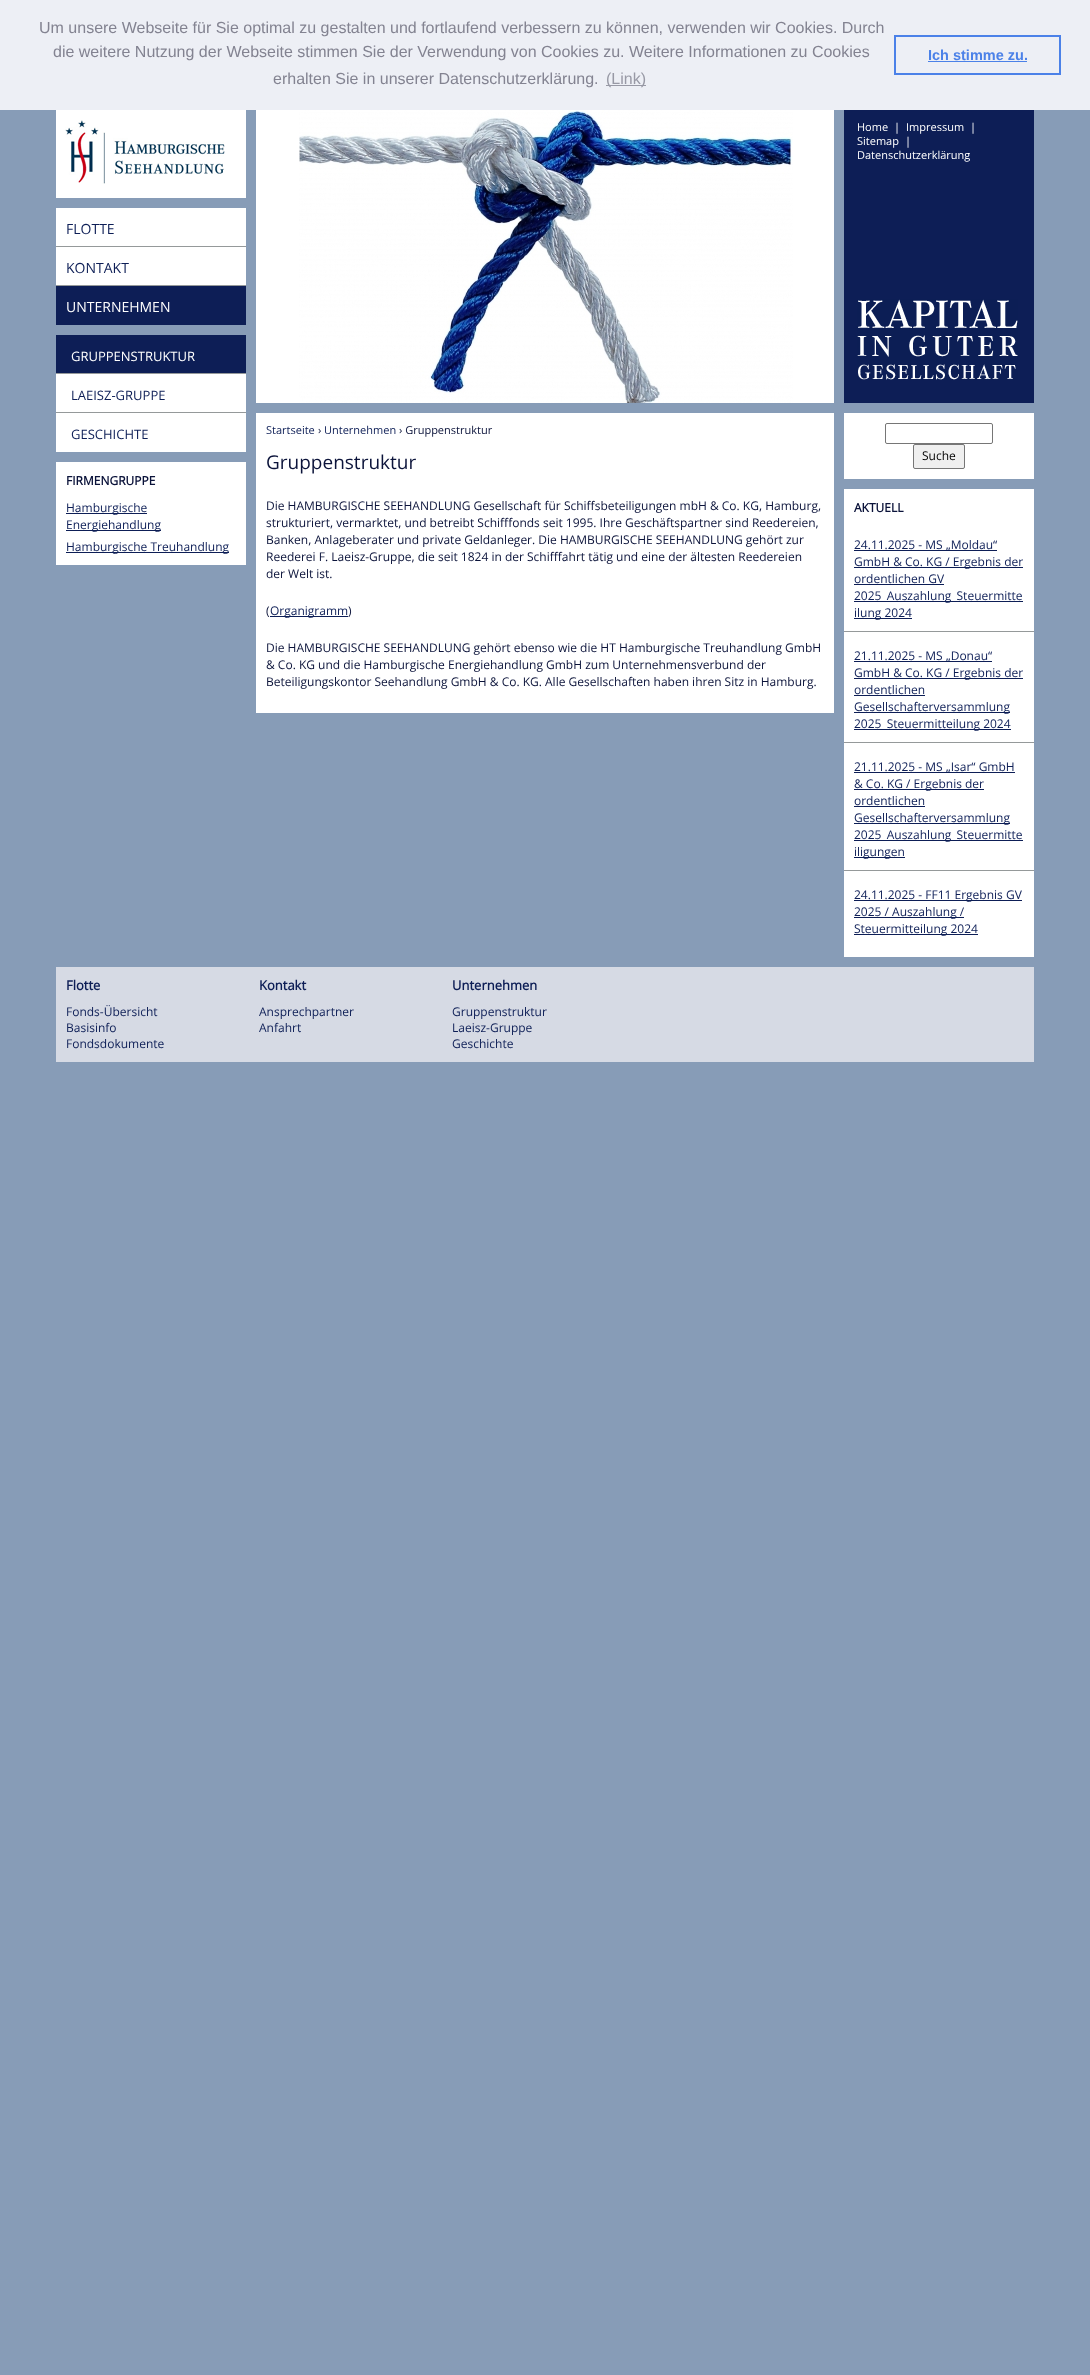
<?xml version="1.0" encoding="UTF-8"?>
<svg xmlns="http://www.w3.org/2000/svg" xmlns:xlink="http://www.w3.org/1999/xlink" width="1090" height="2375">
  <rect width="100%" height="100%" fill="#879cb7" />
  <rect width="1090" height="110" fill="#edeff5" />
  <rect x="606" y="85" width="40" height="1" fill="#9899a5" />
  <rect x="895" y="36" width="165" height="38" fill="none" stroke="#4b81e8" stroke-width="2" />
  <rect x="928" y="61" width="99" height="1" fill="#4b81e8" />
  <rect x="56" y="110" width="190" height="88" fill="#ffffff" />
  <image x="65" y="120" width="160" height="64" xlink:href="image1.png" />
  <rect x="56" y="208" width="190" height="77" fill="#ffffff" />
  <rect x="56" y="246" width="190" height="1" fill="#95999a" />
  <rect x="56" y="285" width="190" height="1" fill="#95999a" />
  <rect x="56" y="286" width="190" height="39" fill="#0d1e56" />
  <rect x="56" y="374" width="190" height="78" fill="#ffffff" />
  <rect x="56" y="335" width="190" height="38" fill="#0d1e56" />
  <rect x="56" y="373" width="190" height="1" fill="#95999a" />
  <rect x="56" y="412" width="190" height="1" fill="#95999a" />
  <rect x="56" y="462" width="190" height="103" fill="#ffffff" />
  <rect x="66" y="513" width="81" height="1" fill="#0d1e56" />
  <rect x="66" y="530" width="95" height="1" fill="#0d1e56" />
  <rect x="66" y="552" width="163" height="1" fill="#0d1e56" />
  <rect x="256" y="110" width="578" height="293" fill="#ffffff" />
  <image x="299" y="110" width="494" height="293" xlink:href="image2.png" />
  <rect x="256" y="413" width="578" height="300" fill="#ffffff" />
  <rect x="270" y="616" width="78" height="1" fill="#0d1e56" />
  <rect x="844" y="110" width="190" height="293" fill="#0d1e56" />
  <image x="857" y="299" width="161" height="81" xlink:href="image3.png" />
  <rect x="844" y="413" width="190" height="66" fill="#ffffff" />
  <rect x="885.5" y="423.5" width="107" height="20" rx="1.5" fill="none" stroke="#767676" />
  <rect x="913.5" y="444.5" width="51" height="24" rx="1.5" fill="#efefef" stroke="#767676" />
  <rect x="844" y="489" width="190" height="468" fill="#ffffff" />
  <rect x="844" y="631" width="190" height="1" fill="#95999a" />
  <rect x="854" y="550" width="143" height="1" fill="#0d1e56" />
  <rect x="854" y="567" width="169" height="1" fill="#0d1e56" />
  <rect x="854" y="584" width="90" height="1" fill="#0d1e56" />
  <rect x="854" y="601" width="169" height="1" fill="#0d1e56" />
  <rect x="854" y="618" width="58" height="1" fill="#0d1e56" />
  <rect x="844" y="742" width="190" height="1" fill="#95999a" />
  <rect x="854" y="661" width="138" height="1" fill="#0d1e56" />
  <rect x="854" y="678" width="169" height="1" fill="#0d1e56" />
  <rect x="854" y="695" width="71" height="1" fill="#0d1e56" />
  <rect x="854" y="712" width="156" height="1" fill="#0d1e56" />
  <rect x="854" y="729" width="157" height="1" fill="#0d1e56" />
  <rect x="844" y="870" width="190" height="1" fill="#95999a" />
  <rect x="854" y="772" width="161" height="1" fill="#0d1e56" />
  <rect x="854" y="789" width="130" height="1" fill="#0d1e56" />
  <rect x="854" y="806" width="71" height="1" fill="#0d1e56" />
  <rect x="854" y="823" width="156" height="1" fill="#0d1e56" />
  <rect x="854" y="840" width="169" height="1" fill="#0d1e56" />
  <rect x="854" y="857" width="51" height="1" fill="#0d1e56" />
  <rect x="854" y="900" width="168" height="1" fill="#0d1e56" />
  <rect x="854" y="917" width="110" height="1" fill="#0d1e56" />
  <rect x="854" y="934" width="124" height="1" fill="#0d1e56" />
  <rect x="56" y="967" width="978" height="95" fill="#d6dae4" />
  <text x="39" y="33" style="font-family: Liberation Sans; font-size: 16px; fill: #838391">Um unsere Webseite für Sie optimal zu gestalten und fortlaufend verbessern zu können, verwenden wir Cookies. Durch</text>
  <text x="53" y="57" style="font-family: Liberation Sans; font-size: 16px; fill: #838391">die weitere Nutzung der Webseite stimmen Sie der Verwendung von Cookies zu. Weitere Informationen zu Cookies</text>
  <text x="273" y="84" style="font-family: Liberation Sans; font-size: 16px; fill: #838391">erhalten Sie in unserer Datenschutzerklärung.</text>
  <text x="606" y="84" style="font-family: Liberation Sans; font-size: 16px; fill: #9899a5">(Link)</text>
  <text x="928" y="60" style="font-family: Liberation Sans; font-size: 14.5px; font-weight: bold; fill: #4b81e8">Ich stimme zu.</text>
  <text x="66" y="234" style="font-family: Open Sans; font-size: 14px; fill: #0d1e56">FLOTTE</text>
  <text x="66" y="273" style="font-family: Open Sans; font-size: 14px; fill: #0d1e56">KONTAKT</text>
  <text x="66" y="312" style="font-family: Open Sans; font-size: 14px; fill: #ffffff">UNTERNEHMEN</text>
  <text x="71" y="361" style="font-family: Open Sans; font-size: 13px; fill: #ffffff">GRUPPENSTRUKTUR</text>
  <text x="71" y="400" style="font-family: Open Sans; font-size: 13px; fill: #0d1e56">LAEISZ-GRUPPE</text>
  <text x="71" y="439" style="font-family: Open Sans; font-size: 13px; fill: #0d1e56">GESCHICHTE</text>
  <text x="66" y="485" style="font-family: Open Sans; font-size: 12px; font-weight: bold; fill: #0b133a">FIRMENGRUPPE</text>
  <text x="66" y="512" style="font-family: Open Sans; font-size: 12px; fill: #0d1e56">Hamburgische</text>
  <text x="66" y="529" style="font-family: Open Sans; font-size: 12px; fill: #0d1e56">Energiehandlung</text>
  <text x="66" y="551" style="font-family: Open Sans; font-size: 12px; fill: #0d1e56">Hamburgische Treuhandlung</text>
  <text x="266" y="434" style="font-family: Open Sans; font-size: 11px; fill: #0d1e56">Startseite</text>
  <text x="318" y="434" style="font-family: Open Sans; font-size: 11px; fill: #0b133a">›</text>
  <text x="324" y="434" style="font-family: Open Sans; font-size: 11px; fill: #0d1e56">Unternehmen</text>
  <text x="399" y="434" style="font-family: Open Sans; font-size: 11px; fill: #0b133a">› Gruppenstruktur</text>
  <text x="266" y="469" style="font-family: Open Sans; font-size: 19px; fill: #0b133a">Gruppenstruktur</text>
  <text x="266" y="510" style="font-family: Open Sans; font-size: 12px; fill: #0b133a">Die HAMBURGISCHE SEEHANDLUNG Gesellschaft für Schiffsbeteiligungen mbH &amp; Co. KG, Hamburg,</text>
  <text x="266" y="527" style="font-family: Open Sans; font-size: 12px; fill: #0b133a">strukturiert, vermarktet, und betreibt Schifffonds seit 1995. Ihre Geschäftspartner sind Reedereien,</text>
  <text x="266" y="544" style="font-family: Open Sans; font-size: 12px; fill: #0b133a">Banken, Anlageberater und private Geldanleger. Die HAMBURGISCHE SEEHANDLUNG gehört zur</text>
  <text x="266" y="561" style="font-family: Open Sans; font-size: 12px; fill: #0b133a">Reederei F. Laeisz-Gruppe, die seit 1824 in der Schifffahrt tätig und eine der ältesten Reedereien</text>
  <text x="266" y="578" style="font-family: Open Sans; font-size: 12px; fill: #0b133a">der Welt ist.</text>
  <text x="266" y="615" style="font-family: Open Sans; font-size: 12px; fill: #0b133a">(</text>
  <text x="270" y="615" style="font-family: Open Sans; font-size: 12px; fill: #0d1e56">Organigramm</text>
  <text x="348" y="615" style="font-family: Open Sans; font-size: 12px; fill: #0b133a">)</text>
  <text x="266" y="652" style="font-family: Open Sans; font-size: 12px; fill: #0b133a">Die HAMBURGISCHE SEEHANDLUNG gehört ebenso wie die HT Hamburgische Treuhandlung GmbH</text>
  <text x="266" y="669" style="font-family: Open Sans; font-size: 12px; fill: #0b133a">&amp; Co. KG und die Hamburgische Energiehandlung GmbH zum Unternehmensverbund der</text>
  <text x="266" y="686" style="font-family: Open Sans; font-size: 12px; fill: #0b133a">Beteiligungskontor Seehandlung GmbH &amp; Co. KG. Alle Gesellschaften haben ihren Sitz in Hamburg.</text>
  <text x="857" y="131" style="font-family: Open Sans; font-size: 11px; fill: #ffffff">Home</text>
  <text x="894" y="131" style="font-family: Open Sans; font-size: 11px; fill: #ffffff">|</text>
  <text x="906" y="131" style="font-family: Open Sans; font-size: 11px; fill: #ffffff">Impressum</text>
  <text x="970" y="131" style="font-family: Open Sans; font-size: 11px; fill: #ffffff">|</text>
  <text x="857" y="145" style="font-family: Open Sans; font-size: 11px; fill: #ffffff">Sitemap</text>
  <text x="905" y="145" style="font-family: Open Sans; font-size: 11px; fill: #ffffff">|</text>
  <text x="857" y="159" style="font-family: Open Sans; font-size: 11px; fill: #ffffff">Datenschutzerklärung</text>
  <text x="922" y="460" style="font-family: Open Sans; font-size: 12px; fill: #000000">Suche</text>
  <text x="854" y="512" style="font-family: Open Sans; font-size: 12px; font-weight: bold; fill: #0b133a">AKTUELL</text>
  <text x="854" y="549" style="font-family: Open Sans; font-size: 12px; fill: #0d1e56">24.11.2025 - MS „Moldau“</text>
  <text x="854" y="566" style="font-family: Open Sans; font-size: 12px; fill: #0d1e56">GmbH &amp; Co. KG / Ergebnis der</text>
  <text x="854" y="583" style="font-family: Open Sans; font-size: 12px; fill: #0d1e56">ordentlichen GV</text>
  <text x="854" y="600" style="font-family: Open Sans; font-size: 12px; fill: #0d1e56">2025_Auszahlung_Steuermitte</text>
  <text x="854" y="617" style="font-family: Open Sans; font-size: 12px; fill: #0d1e56">ilung 2024</text>
  <text x="854" y="660" style="font-family: Open Sans; font-size: 12px; fill: #0d1e56">21.11.2025 - MS „Donau“</text>
  <text x="854" y="677" style="font-family: Open Sans; font-size: 12px; fill: #0d1e56">GmbH &amp; Co. KG / Ergebnis der</text>
  <text x="854" y="694" style="font-family: Open Sans; font-size: 12px; fill: #0d1e56">ordentlichen</text>
  <text x="854" y="711" style="font-family: Open Sans; font-size: 12px; fill: #0d1e56">Gesellschafterversammlung</text>
  <text x="854" y="728" style="font-family: Open Sans; font-size: 12px; fill: #0d1e56">2025_Steuermitteilung 2024</text>
  <text x="854" y="771" style="font-family: Open Sans; font-size: 12px; fill: #0d1e56">21.11.2025 - MS „Isar“ GmbH</text>
  <text x="854" y="788" style="font-family: Open Sans; font-size: 12px; fill: #0d1e56">&amp; Co. KG / Ergebnis der</text>
  <text x="854" y="805" style="font-family: Open Sans; font-size: 12px; fill: #0d1e56">ordentlichen</text>
  <text x="854" y="822" style="font-family: Open Sans; font-size: 12px; fill: #0d1e56">Gesellschafterversammlung</text>
  <text x="854" y="839" style="font-family: Open Sans; font-size: 12px; fill: #0d1e56">2025_Auszahlung_Steuermitte</text>
  <text x="854" y="856" style="font-family: Open Sans; font-size: 12px; fill: #0d1e56">iligungen</text>
  <text x="854" y="899" style="font-family: Open Sans; font-size: 12px; fill: #0d1e56">24.11.2025 - FF11 Ergebnis GV</text>
  <text x="854" y="916" style="font-family: Open Sans; font-size: 12px; fill: #0d1e56">2025 / Auszahlung /</text>
  <text x="854" y="933" style="font-family: Open Sans; font-size: 12px; fill: #0d1e56">Steuermitteilung 2024</text>
  <text x="66" y="990" style="font-family: Open Sans; font-size: 13px; font-weight: bold; fill: #0d1e56">Flotte</text>
  <text x="66" y="1016" style="font-family: Open Sans; font-size: 12px; fill: #0d1e56">Fonds-Übersicht</text>
  <text x="66" y="1032" style="font-family: Open Sans; font-size: 12px; fill: #0d1e56">Basisinfo</text>
  <text x="66" y="1048" style="font-family: Open Sans; font-size: 12px; fill: #0d1e56">Fondsdokumente</text>
  <text x="259" y="990" style="font-family: Open Sans; font-size: 13px; font-weight: bold; fill: #0d1e56">Kontakt</text>
  <text x="259" y="1016" style="font-family: Open Sans; font-size: 12px; fill: #0d1e56">Ansprechpartner</text>
  <text x="259" y="1032" style="font-family: Open Sans; font-size: 12px; fill: #0d1e56">Anfahrt</text>
  <text x="452" y="990" style="font-family: Open Sans; font-size: 13px; font-weight: bold; fill: #0d1e56">Unternehmen</text>
  <text x="452" y="1016" style="font-family: Open Sans; font-size: 12px; fill: #0d1e56">Gruppenstruktur</text>
  <text x="452" y="1032" style="font-family: Open Sans; font-size: 12px; fill: #0d1e56">Laeisz-Gruppe</text>
  <text x="452" y="1048" style="font-family: Open Sans; font-size: 12px; fill: #0d1e56">Geschichte</text>
</svg>
